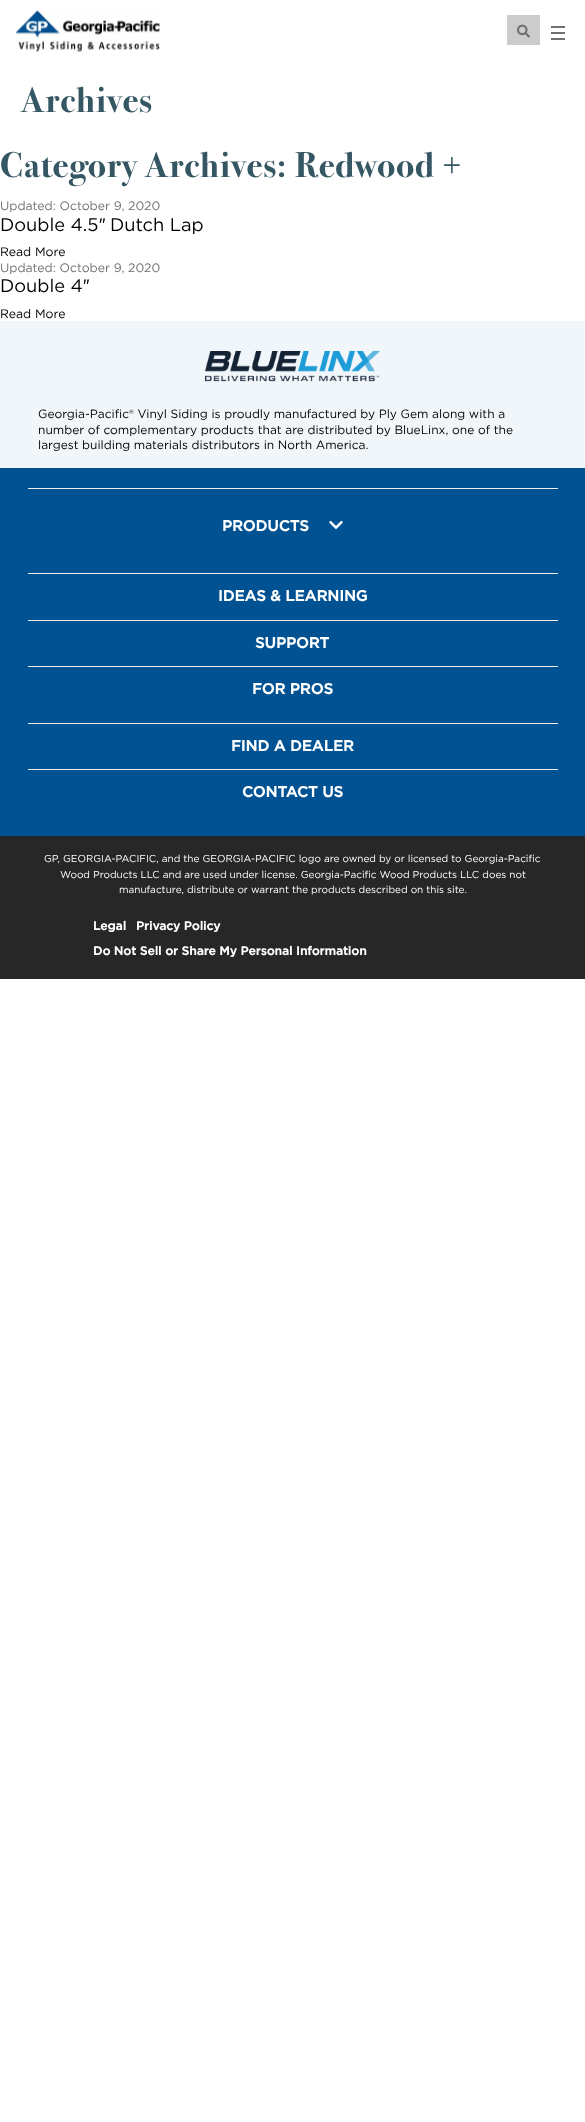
<?xml version="1.0" encoding="UTF-8"?>
<svg xmlns="http://www.w3.org/2000/svg" xmlns:xlink="http://www.w3.org/1999/xlink" width="585" height="2122">
  <rect width="100%" height="100%" fill="#ffffff" />
  <image x="15" y="10" width="145" height="42" xlink:href="image1.png" />
  <rect x="551" y="32" width="14" height="2" fill="#707070" />
  <rect x="551" y="26" width="14" height="2" fill="#707070" />
  <rect x="551" y="38" width="14" height="2" fill="#707070" />
  <rect x="507" y="15" width="33" height="30" fill="#cccccc" />
  <image x="517" y="24" width="13" height="14" xlink:href="image2.png" />
  <rect y="321" width="585" height="147" fill="#f1f6fa" />
  <image x="205" y="351" width="175" height="31" xlink:href="image3.png" />
  <rect y="468" width="585" height="368" fill="#005293" />
  <rect x="28" y="488" width="530" height="1" fill="#eeeeee" />
  <image x="329" y="520" width="14" height="10" xlink:href="image4.png" />
  <rect x="28" y="573" width="530" height="1" fill="#eeeeee" />
  <rect x="28" y="620" width="530" height="1" fill="#eeeeee" />
  <rect x="28" y="666" width="530" height="1" fill="#eeeeee" />
  <rect x="28" y="723" width="530" height="1" fill="#eeeeee" />
  <rect x="28" y="769" width="530" height="1" fill="#eeeeee" />
  <rect y="836" width="585" height="143" fill="#272727" />
  <text x="20" y="112" style="font-family: 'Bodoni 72'; font-size: 36px; font-weight: bold; letter-spacing: 0.75px; fill: #355763">Archives</text>
  <text x="0" y="177" word-spacing="1" style="font-family: 'Bodoni 72'; font-size: 36px; font-weight: bold; letter-spacing: 0.75px; fill: #355763">Category Archives:</text>
  <text x="295" y="177" word-spacing="1" style="font-family: 'Bodoni 72'; font-size: 36px; font-weight: bold; letter-spacing: 0.75px; fill: #355763">Redwood +</text>
  <text x="0" y="210" style="font-family: 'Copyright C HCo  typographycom'; font-size: 12.25px; font-weight: 300; fill: #707070">Updated: October 9, 2020</text>
  <text x="0" y="231" style="font-family: 'Copyright C HCo  typographycom'; font-size: 18.25px; font-weight: 300; fill: #000000">Double 4.5</text>
  <text x="99" y="231" style="font-family: Liberation Sans; font-size: 18.25px; fill: #000000">″</text>
  <text x="110" y="231" style="font-family: 'Copyright C HCo  typographycom'; font-size: 18.25px; font-weight: 300; fill: #000000">Dutch Lap</text>
  <text x="0" y="256" style="font-family: 'Copyright C HCo  typographycom'; font-size: 12.25px; font-weight: 300; fill: #000000">Read More</text>
  <text x="0" y="272" style="font-family: 'Copyright C HCo  typographycom'; font-size: 12.25px; font-weight: 300; fill: #707070">Updated: October 9, 2020</text>
  <text x="0" y="292" style="font-family: 'Copyright C HCo  typographycom'; font-size: 18.25px; font-weight: 300; fill: #000000">Double 4</text>
  <text x="83" y="292" style="font-family: Liberation Sans; font-size: 18.25px; fill: #000000">″</text>
  <text x="0" y="318" style="font-family: 'Copyright C HCo  typographycom'; font-size: 12.25px; font-weight: 300; fill: #000000">Read More</text>
  <text x="38" y="418" style="font-family: 'Copyright C HCo  typographycom'; font-size: 12px; font-weight: 300; fill: #000000">Georgia-Pacific® Vinyl Siding is proudly manufactured by Ply Gem along with a</text>
  <text x="38" y="434" style="font-family: 'Copyright C HCo  typographycom'; font-size: 12px; font-weight: 300; fill: #000000">number of complementary products that are distributed by BlueLinx, one of the</text>
  <text x="38" y="449" style="font-family: 'Copyright C HCo  typographycom'; font-size: 12px; font-weight: 300; fill: #000000">largest building materials distributors in North America.</text>
  <text x="222" y="531" style="font-family: 'Copyright C HCo  typographycom'; font-size: 15px; font-weight: bold; fill: #ffffff">PRODUCTS</text>
  <text x="218" y="601" style="font-family: 'Copyright C HCo  typographycom'; font-size: 15px; font-weight: bold; fill: #ffffff">IDEAS &amp; LEARNING</text>
  <text x="255" y="648" style="font-family: 'Copyright C HCo  typographycom'; font-size: 15px; font-weight: bold; fill: #ffffff">SUPPORT</text>
  <text x="252" y="694" style="font-family: 'Copyright C HCo  typographycom'; font-size: 15px; font-weight: bold; fill: #ffffff">FOR PROS</text>
  <text x="231" y="751" style="font-family: 'Copyright C HCo  typographycom'; font-size: 15px; font-weight: bold; fill: #ffffff">FIND A DEALER</text>
  <text x="242" y="797" style="font-family: 'Copyright C HCo  typographycom'; font-size: 15px; font-weight: bold; fill: #ffffff">CONTACT US</text>
  <text x="44" y="862" style="font-family: 'Copyright C HCo  typographycom'; font-size: 10px; font-weight: 300; fill: #ffffff">GP, GEORGIA-PACIFIC, and the GEORGIA-PACIFIC logo are owned by or licensed to Georgia-Pacific</text>
  <text x="60" y="878" style="font-family: 'Copyright C HCo  typographycom'; font-size: 10px; font-weight: 300; fill: #ffffff">Wood Products LLC and are used under license. Georgia-Pacific Wood Products LLC does not</text>
  <text x="119" y="893" style="font-family: 'Copyright C HCo  typographycom'; font-size: 10px; font-weight: 300; fill: #ffffff">manufacture, distribute or warrant the products described on this site.</text>
  <text x="93" y="930" style="font-family: 'Copyright C HCo  typographycom'; font-size: 12px; font-weight: bold; fill: #ffffff">Legal</text>
  <text x="136" y="930" style="font-family: 'Copyright C HCo  typographycom'; font-size: 12px; font-weight: bold; fill: #ffffff">Privacy Policy</text>
  <text x="93" y="955" style="font-family: 'Copyright C HCo  typographycom'; font-size: 12px; font-weight: bold; fill: #ffffff">Do Not Sell or Share My Personal Information</text>
</svg>
